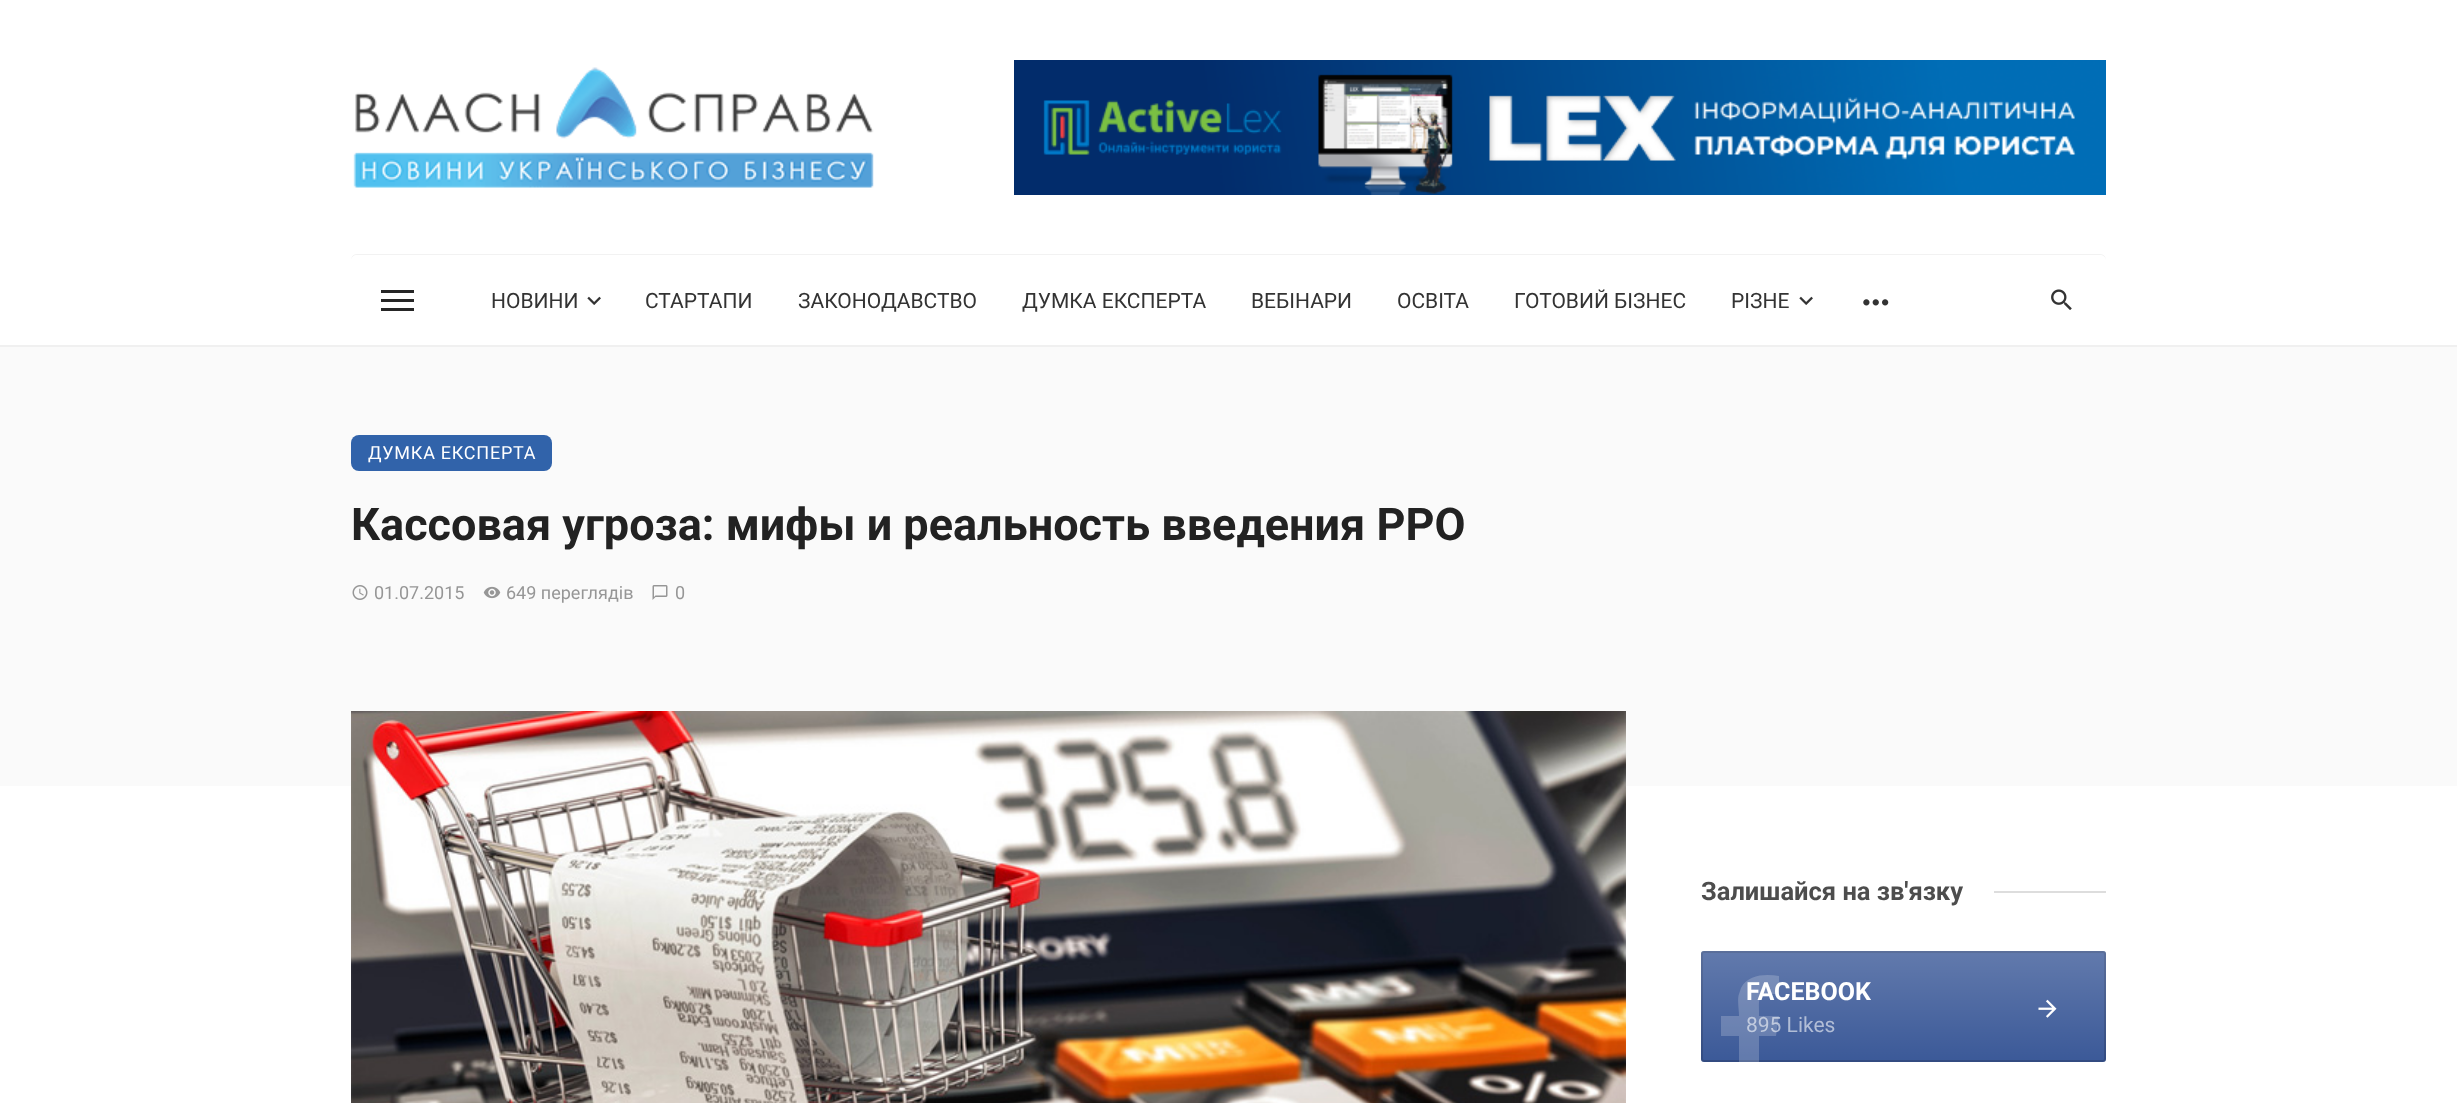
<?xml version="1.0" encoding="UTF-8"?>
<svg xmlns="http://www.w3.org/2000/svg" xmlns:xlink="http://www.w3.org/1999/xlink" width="2457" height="1103">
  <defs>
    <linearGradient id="g1" gradientUnits="userSpaceOnUse" x1="1904" y1="951" x2="1904" y2="1062"><stop offset="0" stop-color="#ffffff" stop-opacity="0.2" /><stop offset="1" stop-color="#ffffff" stop-opacity="0" /></linearGradient>
  </defs>
  <rect width="100%" height="100%" fill="#ffffff" />
  <rect y="345" width="2457" height="2" fill="#f0f0f0" />
  <image x="353" y="67" width="521" height="121" xlink:href="image1.png" />
  <image x="1014" y="60" width="1092" height="135" xlink:href="image2.png" />
  <path d="M 357 254 c -4 0 -6 3 -6 7 c 0 -3 3 -6 6 -6 h 1743 c 3 0 6 3 6 6 c 0 -4 -2 -7 -6 -7 z" fill="#f2f2f2" />
  <rect x="351" y="255" width="1755" height="90" rx="6" fill="#ffffff" />
  <rect x="381" y="299" width="33" height="3" fill="#262626" />
  <rect x="381" y="290" width="33" height="3" fill="#262626" />
  <rect x="381" y="308" width="33" height="3" fill="#262626" />
  <image x="587" y="296" width="14" height="9" xlink:href="image3.png" />
  <image x="1799" y="296" width="14" height="9" xlink:href="image3.png" />
  <image x="1863" y="299" width="26" height="7" xlink:href="image4.png" />
  <image x="2051" y="289" width="21" height="21" xlink:href="image5.png" />
  <rect y="347" width="2457" height="439" fill="#fafafa" />
  <rect x="351" y="435" width="201" height="36" rx="8" fill="#3163aa" />
  <image x="352" y="585" width="16" height="15" xlink:href="image6.png" />
  <image x="483" y="586" width="18" height="13" xlink:href="image7.png" />
  <image x="652" y="585" width="16" height="15" xlink:href="image8.png" />
  <image x="351" y="711" width="1275" height="392" xlink:href="image9.png" />
  <rect x="1994" y="891" width="112" height="2" fill="#dddddd" />
  <rect x="1701" y="951" width="405" height="111" rx="3" fill="#3b5998" />
  <rect x="1702" y="952" width="403" height="109" rx="2" fill="none" stroke="#000000" stroke-opacity="0.15" stroke-width="2" />
  <image x="2038" y="999" width="19" height="19" xlink:href="image10.png" />
  <rect x="1701" y="951" width="405" height="111" rx="3" fill="url(#g1)" />
  <text x="491" y="308" style="font-family: Roboto; font-size: 21px; fill: #333333">НОВИНИ</text>
  <text x="645" y="308" style="font-family: Roboto; font-size: 21px; fill: #333333">СТАРТАПИ</text>
  <text x="798" y="308" style="font-family: Roboto; font-size: 21px; fill: #333333">ЗАКОНОДАВСТВО</text>
  <text x="1022" y="308" style="font-family: Roboto; font-size: 21px; fill: #333333">ДУМКА ЕКСПЕРТА</text>
  <text x="1251" y="308" style="font-family: Roboto; font-size: 21px; fill: #333333">ВЕБІНАРИ</text>
  <text x="1397" y="308" style="font-family: Roboto; font-size: 21px; fill: #333333">ОСВІТА</text>
  <text x="1514" y="308" style="font-family: Roboto; font-size: 21px; fill: #333333">ГОТОВИЙ БІЗНЕС</text>
  <text x="1731" y="308" style="font-family: Roboto; font-size: 21px; fill: #333333">РІЗНЕ</text>
  <text x="368" y="459" style="font-family: Roboto; font-size: 18px; letter-spacing: 0.75px; fill: #ffffff">ДУМКА ЕКСПЕРТА</text>
  <text x="351" y="540" style="font-family: Roboto; font-size: 45px; font-weight: bold; fill: #222222">Кассовая угроза: мифы и реальность введения РРО</text>
  <text x="374" y="599" style="font-family: Roboto; font-size: 18px; fill: #969696">01.07.2015</text>
  <text x="506" y="599" style="font-family: Roboto; font-size: 18px; fill: #969696">649 переглядів</text>
  <text x="675" y="599" style="font-family: Roboto; font-size: 18px; fill: #969696">0</text>
  <text x="1701" y="900" style="font-family: Roboto; font-size: 25.5px; font-weight: bold; fill: #4d4d4d">Залишайся на зв'язку</text>
  <text x="1746" y="1000" style="font-family: Roboto; font-size: 25px; font-weight: bold; fill: #ffffff">FACEBOOK</text>
  <text x="1746" y="1032" style="font-family: Roboto; font-size: 21px; fill: #b1bdd6">895 Likes</text>
  <path d="M 1779 976 v 18 c -22 0 -20 1 -20 22 h 20 l -3 20 h -17 v 26 h -20 v -26 h -18 v -20 h 18 c 0 -6 -2 -17 0 -22 l 2 -6 c 7 -14 25 -14 38 -12 z" fill="#ffffff" fill-opacity="0.2" />
</svg>
